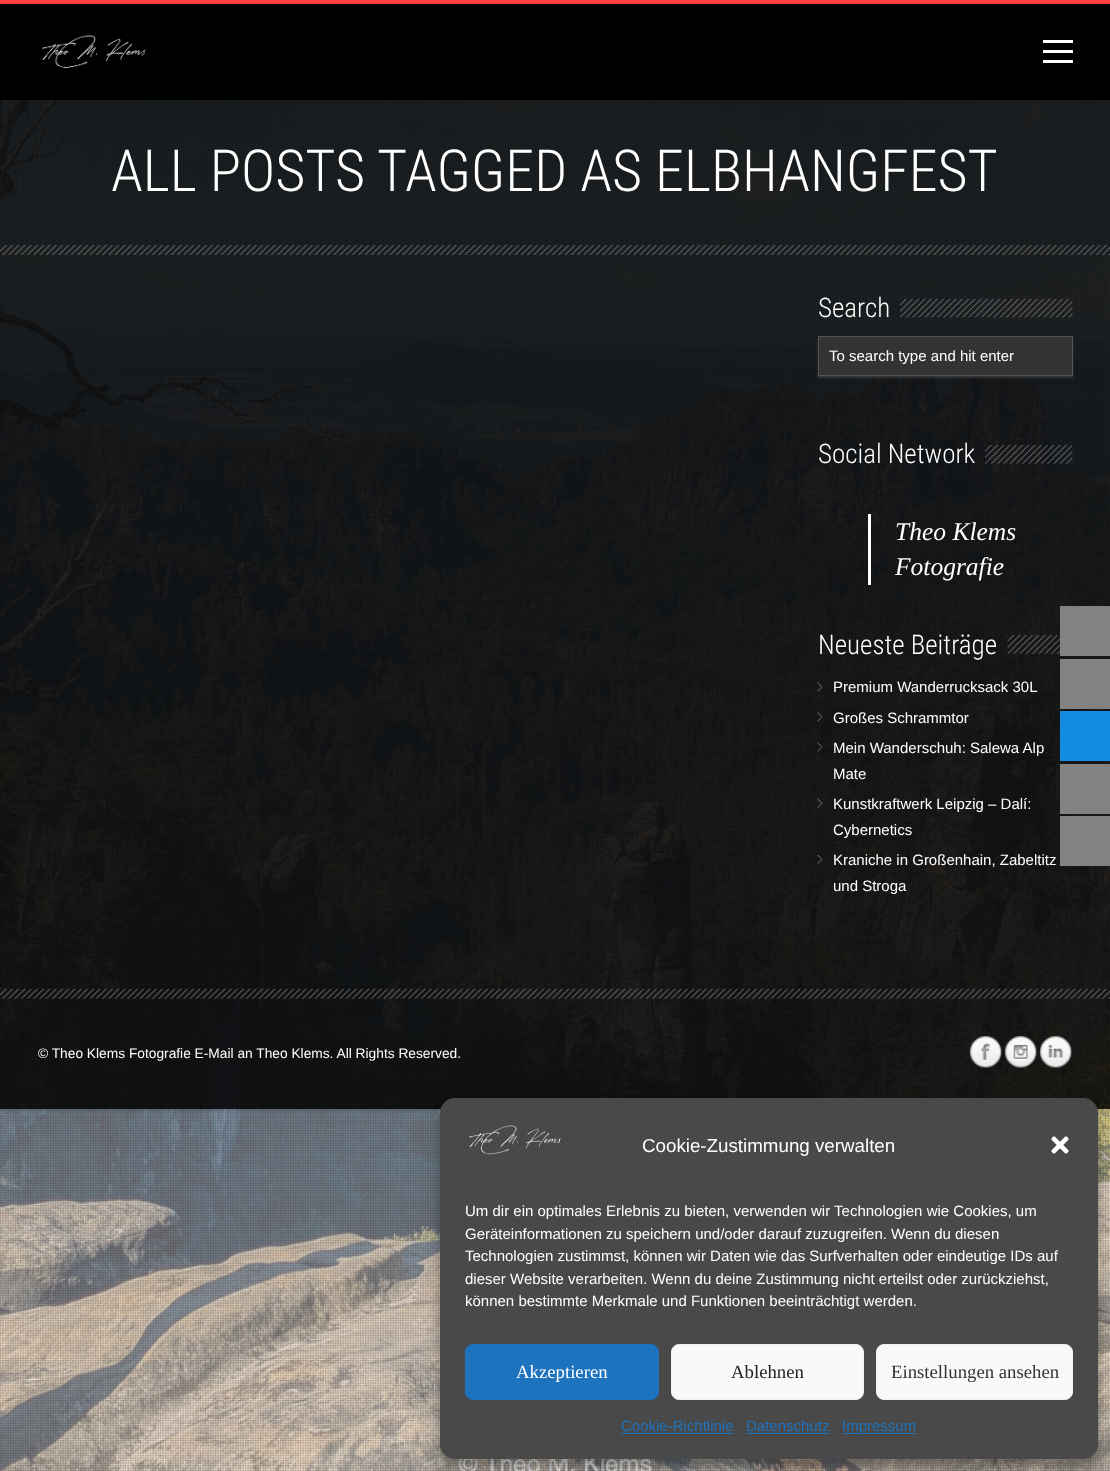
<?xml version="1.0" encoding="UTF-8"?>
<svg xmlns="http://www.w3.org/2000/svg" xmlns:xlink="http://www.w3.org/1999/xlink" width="1110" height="1471">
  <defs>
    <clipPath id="clip1"><path d="M 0 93 h 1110 v 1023 h -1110 z m 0 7 h 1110 v 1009 h -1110 z" clip-rule="evenodd" /></clipPath>
  </defs>
  <rect width="100%" height="100%" fill="#ffffff" />
  <rect width="1110" height="4" fill="#ff3d3d" />
  <rect y="4" width="1110" height="96" fill="#000000" />
  <image x="42" y="34" width="104" height="34" xlink:href="image1.png" />
  <rect x="1043" y="50" width="30" height="3" fill="#ffffff" />
  <rect x="1043" y="40" width="30" height="3" fill="#ffffff" />
  <rect x="1043" y="60" width="30" height="3" fill="#ffffff" />
  <image x="0" y="100" width="1110" height="1371" xlink:href="image2.png" />
  <image x="0" y="100" width="1109" height="1371" xlink:href="image3.png" />
  <g clip-path="url(#clip1)">
    <rect y="100" width="1110" height="1009" fill="#000000" fill-opacity="0.3" filter="blur(2px)" />
  </g>
  <rect y="100" width="1110" height="1009" fill="#000000" fill-opacity="0.85" />
  <image x="0" y="245" width="1110" height="10" xlink:href="image4.png" />
  <image x="900" y="298" width="173" height="20" xlink:href="image5.png" />
  <rect x="818" y="338" width="255" height="40" fill="#b4b4b4" fill-opacity="0.2" filter="blur(1px)" />
  <rect x="818.5" y="336.5" width="254" height="39" fill="#333333" stroke="#555555" />
  <image x="985" y="445" width="88" height="19" xlink:href="image6.png" />
  <rect x="868" y="514" width="3" height="71" fill="#ffffff" />
  <image x="1007" y="635" width="53" height="19" xlink:href="image7.png" />
  <image x="817" y="682" width="6" height="10" xlink:href="image8.png" />
  <image x="817" y="712" width="6" height="10" xlink:href="image9.png" />
  <image x="817" y="742" width="6" height="10" xlink:href="image10.png" />
  <image x="817" y="798" width="6" height="10" xlink:href="image11.png" />
  <image x="817" y="855" width="6" height="9" xlink:href="image12.png" />
  <image x="0" y="988" width="1110" height="11" xlink:href="image13.png" />
  <image x="969" y="1036" width="33" height="32" xlink:href="image14.png" />
  <image x="1004" y="1036" width="33" height="32" xlink:href="image15.png" />
  <image x="1039" y="1036" width="33" height="32" xlink:href="image16.png" />
  <rect x="1060" y="606" width="50" height="50" fill="#828282" />
  <rect x="1060" y="659" width="50" height="50" fill="#828282" />
  <rect x="1060" y="711" width="50" height="50" fill="#128be0" />
  <rect x="1060" y="764" width="50" height="50" fill="#828282" />
  <rect x="1060" y="816" width="50" height="50" fill="#828282" />
  <rect x="440" y="1105" width="658" height="361" rx="15" fill="#000000" fill-opacity="0.23" filter="blur(4px)" />
  <rect x="440" y="1110" width="658" height="361" rx="15" fill="#000000" fill-opacity="0.19" filter="blur(12.5px)" />
  <rect x="440" y="1098" width="658" height="361" rx="15" fill="#494949" />
  <image x="469" y="1125" width="92" height="30" xlink:href="image17.png" />
  <image x="1051" y="1136" width="18" height="18" xlink:href="image18.png" />
  <rect x="465.5" y="1344.5" width="193" height="55" rx="7.5" fill="#1e73be" stroke="#1e73be" />
  <rect x="671.5" y="1344.5" width="192" height="55" rx="7.5" fill="#f9f9f9" stroke="#f2f2f2" />
  <rect x="876.5" y="1344.5" width="196" height="55" rx="7.5" fill="#f9f9f9" stroke="#f2f2f2" />
  <rect x="621" y="1433" width="113" height="1" fill="#1e73be" />
  <rect x="746" y="1433" width="84" height="1" fill="#1e73be" />
  <rect x="843" y="1433" width="73" height="1" fill="#1e73be" />
  <text x="111" y="191" style="font-family: Roboto Condensed; font-size: 58px; font-weight: 300; fill: #ffffff">ALL POSTS TAGGED AS ELBHANGFEST</text>
  <text x="818" y="317" style="font-family: Roboto Condensed; font-size: 27px; font-weight: 300; fill: #ffffff">Search</text>
  <text x="829" y="361" style="font-family: Liberation Sans; font-size: 15px; fill: #ffffff">To search type and hit enter</text>
  <text x="818" y="463" style="font-family: Roboto Condensed; font-size: 27px; font-weight: 300; fill: #ffffff">Social Network</text>
  <text x="895" y="540" style="font-family: Liberation Serif; font-size: 25.5px; font-style: italic; fill: #ffffff">Theo Klems</text>
  <text x="895" y="575" style="font-family: Liberation Serif; font-size: 25.5px; font-style: italic; fill: #ffffff">Fotografie</text>
  <text x="818" y="654" style="font-family: Roboto Condensed; font-size: 27px; font-weight: 300; fill: #ffffff">Neueste Beiträge</text>
  <text x="833" y="692" style="font-family: Liberation Sans; font-size: 15px; fill: #ffffff">Premium Wanderrucksack 30L</text>
  <text x="833" y="723" style="font-family: Liberation Sans; font-size: 15px; fill: #ffffff">Großes Schrammtor</text>
  <text x="833" y="753" style="font-family: Liberation Sans; font-size: 15px; fill: #ffffff">Mein Wanderschuh: Salewa Alp</text>
  <text x="833" y="779" style="font-family: Liberation Sans; font-size: 15px; fill: #ffffff">Mate</text>
  <text x="833" y="809" style="font-family: Liberation Sans; font-size: 15px; fill: #ffffff">Kunstkraftwerk Leipzig – Dalí:</text>
  <text x="833" y="835" style="font-family: Liberation Sans; font-size: 15px; fill: #ffffff">Cybernetics</text>
  <text x="833" y="865" style="font-family: Liberation Sans; font-size: 15px; fill: #ffffff">Kraniche in Großenhain, Zabeltitz</text>
  <text x="833" y="891" style="font-family: Liberation Sans; font-size: 15px; fill: #ffffff">und Stroga</text>
  <text x="38" y="1058" style="font-family: Liberation Sans; font-size: 13.75px; fill: #ffffff">© Theo Klems Fotografie E-Mail an Theo Klems. All Rights Reserved.</text>
  <text x="642" y="1152" style="font-family: Liberation Sans; font-size: 18.75px; fill: #ffffff">Cookie-Zustimmung verwalten</text>
  <text x="465" y="1216" style="font-family: Liberation Sans; font-size: 15px; fill: #ffffff">Um dir ein optimales Erlebnis zu bieten, verwenden wir Technologien wie Cookies, um</text>
  <text x="465" y="1239" style="font-family: Liberation Sans; font-size: 15px; fill: #ffffff">Geräteinformationen zu speichern und/oder darauf zuzugreifen. Wenn du diesen</text>
  <text x="465" y="1261" style="font-family: Liberation Sans; font-size: 15px; fill: #ffffff">Technologien zustimmst, können wir Daten wie das Surfverhalten oder eindeutige IDs auf</text>
  <text x="465" y="1284" style="font-family: Liberation Sans; font-size: 15px; fill: #ffffff">dieser Website verarbeiten. Wenn du deine Zustimmung nicht erteilst oder zurückziehst,</text>
  <text x="465" y="1306" style="font-family: Liberation Sans; font-size: 15px; fill: #ffffff">können bestimmte Merkmale und Funktionen beeinträchtigt werden.</text>
  <text x="516" y="1378" style="font-family: Liberation Serif; font-size: 18.75px; fill: #ffffff">Akzeptieren</text>
  <text x="731" y="1378" style="font-family: Liberation Serif; font-size: 18.75px; fill: #222222">Ablehnen</text>
  <text x="891" y="1378" style="font-family: Liberation Serif; font-size: 18.75px; fill: #333333">Einstellungen ansehen</text>
  <text x="621" y="1431" style="font-family: Liberation Sans; font-size: 15px; fill: #1e73be">Cookie-Richtlinie</text>
  <text x="746" y="1431" style="font-family: Liberation Sans; font-size: 15px; fill: #1e73be">Datenschutz</text>
  <text x="842" y="1431" style="font-family: Liberation Sans; font-size: 15px; fill: #1e73be">Impressum</text>
</svg>
